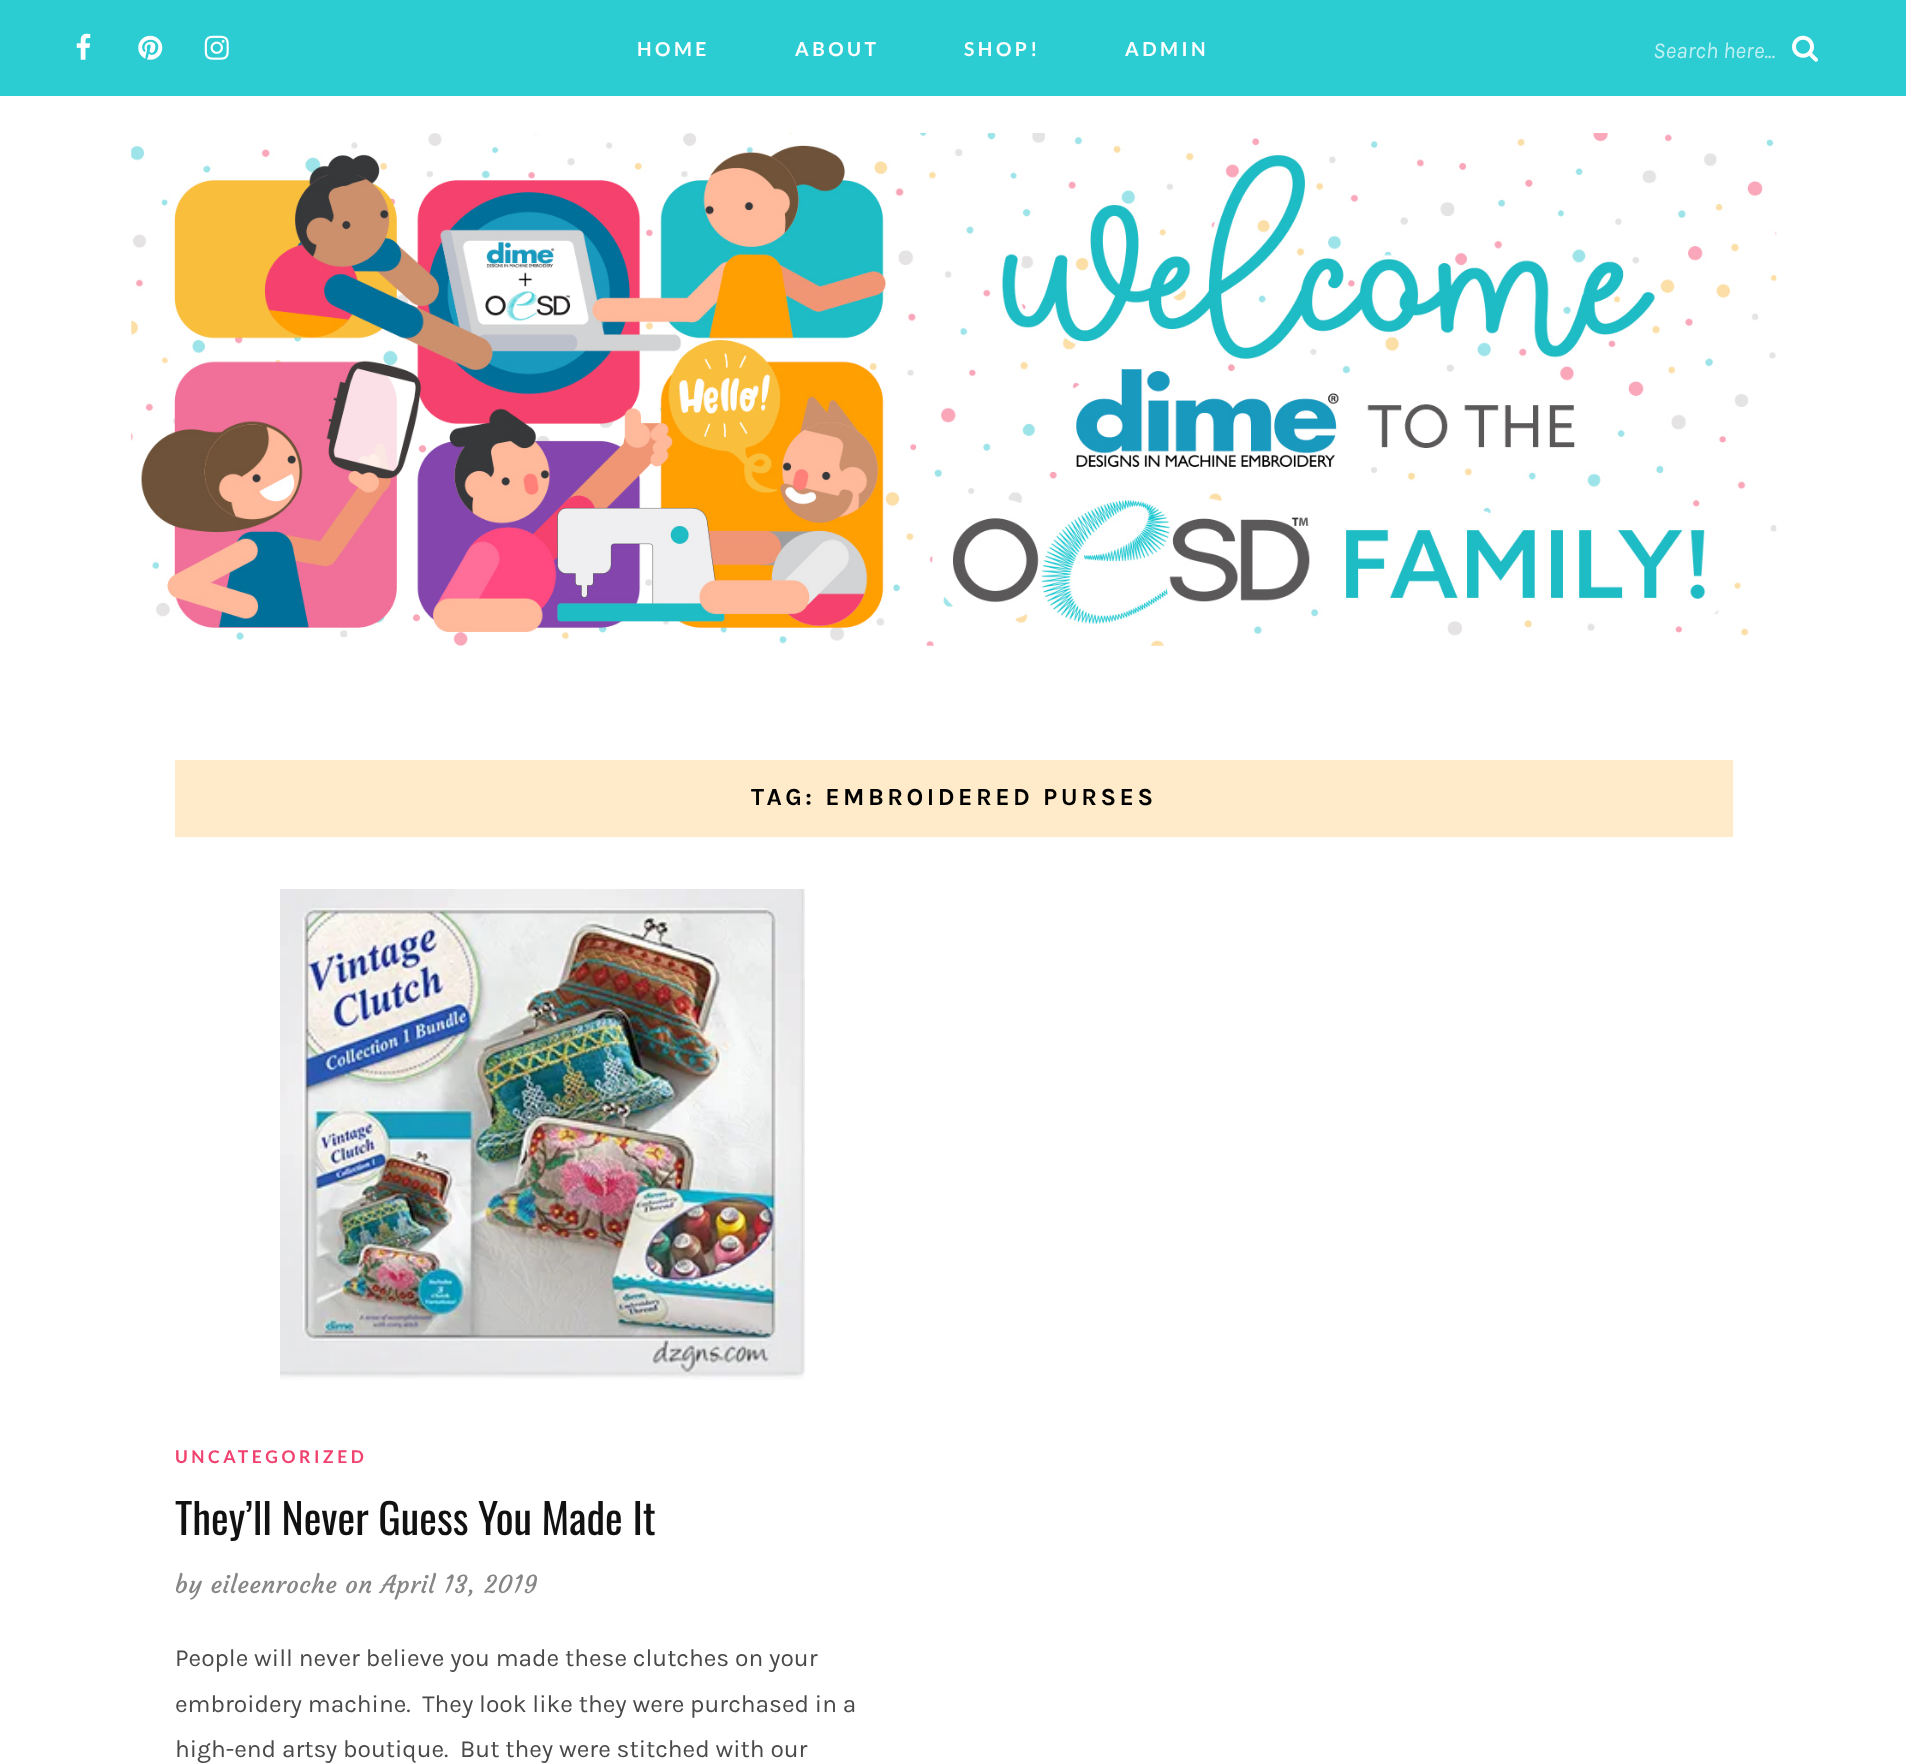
<?xml version="1.0" encoding="UTF-8"?>
<svg xmlns="http://www.w3.org/2000/svg" xmlns:xlink="http://www.w3.org/1999/xlink" width="1906" height="1763">
  <rect width="100%" height="100%" fill="#ffffff" />
  <rect width="1906" height="96" fill="#2cccd3" />
  <image x="76" y="33" width="15" height="27" xlink:href="image1.png" />
  <image x="138" y="35" width="25" height="25" xlink:href="image2.png" />
  <image x="204" y="35" width="25" height="25" xlink:href="image3.png" />
  <image x="1792" y="35" width="26" height="27" xlink:href="image4.png" />
  <image x="131" y="133" width="1646" height="513" xlink:href="image5.png" />
  <rect x="175" y="760" width="1558" height="77" fill="#ffebc9" />
  <image x="280" y="889" width="525" height="491" xlink:href="image6.png" />
  <text x="637" y="56" style="font-family: Lato; font-size: 19.25px; font-weight: bold; letter-spacing: 3.5px; fill: #ffffff">HOME</text>
  <text x="795" y="56" style="font-family: Lato; font-size: 19.25px; font-weight: bold; letter-spacing: 3.5px; fill: #ffffff">ABOUT</text>
  <text x="964" y="56" style="font-family: Lato; font-size: 19.25px; font-weight: bold; letter-spacing: 3.5px; fill: #ffffff">SHOP!</text>
  <text x="1125" y="56" style="font-family: Lato; font-size: 19.25px; font-weight: bold; letter-spacing: 3.5px; fill: #ffffff">ADMIN</text>
  <text x="1653" y="58" style="font-family: Karla; font-size: 22.75px; font-style: italic; fill: #c0f0f2">Search here...</text>
  <text x="751" y="805" style="font-family: Karla; font-size: 24.5px; font-weight: bold; letter-spacing: 3.5px; fill: #000000">TAG: EMBROIDERED PURSES</text>
  <text x="175" y="1463" style="font-family: Lato; font-size: 17.5px; font-weight: bold; letter-spacing: 3.5px; fill: #ef426f">UNCATEGORIZED</text>
  <text x="175" y="1535" style="font-family: Oswald; font-size: 42px; fill: #111111">They’ll Never Guess You Made It</text>
  <text x="175" y="1593" style="font-family: Courgette; font-size: 24.5px; letter-spacing: 0.5px; fill: #868686">by eileenroche on April 13, 2019</text>
  <text x="175" y="1666" style="font-family: Karla; font-size: 24.5px; fill: #494949">People will never believe you made these clutches on your</text>
  <text x="175" y="1712" style="font-family: Karla; font-size: 24.5px; fill: #494949" xml:space="preserve">embroidery machine.  They look like they were purchased in a</text>
  <text x="175" y="1757" style="font-family: Karla; font-size: 24.5px; fill: #494949" xml:space="preserve">high-end artsy boutique.  But they were stitched with our</text>
</svg>
